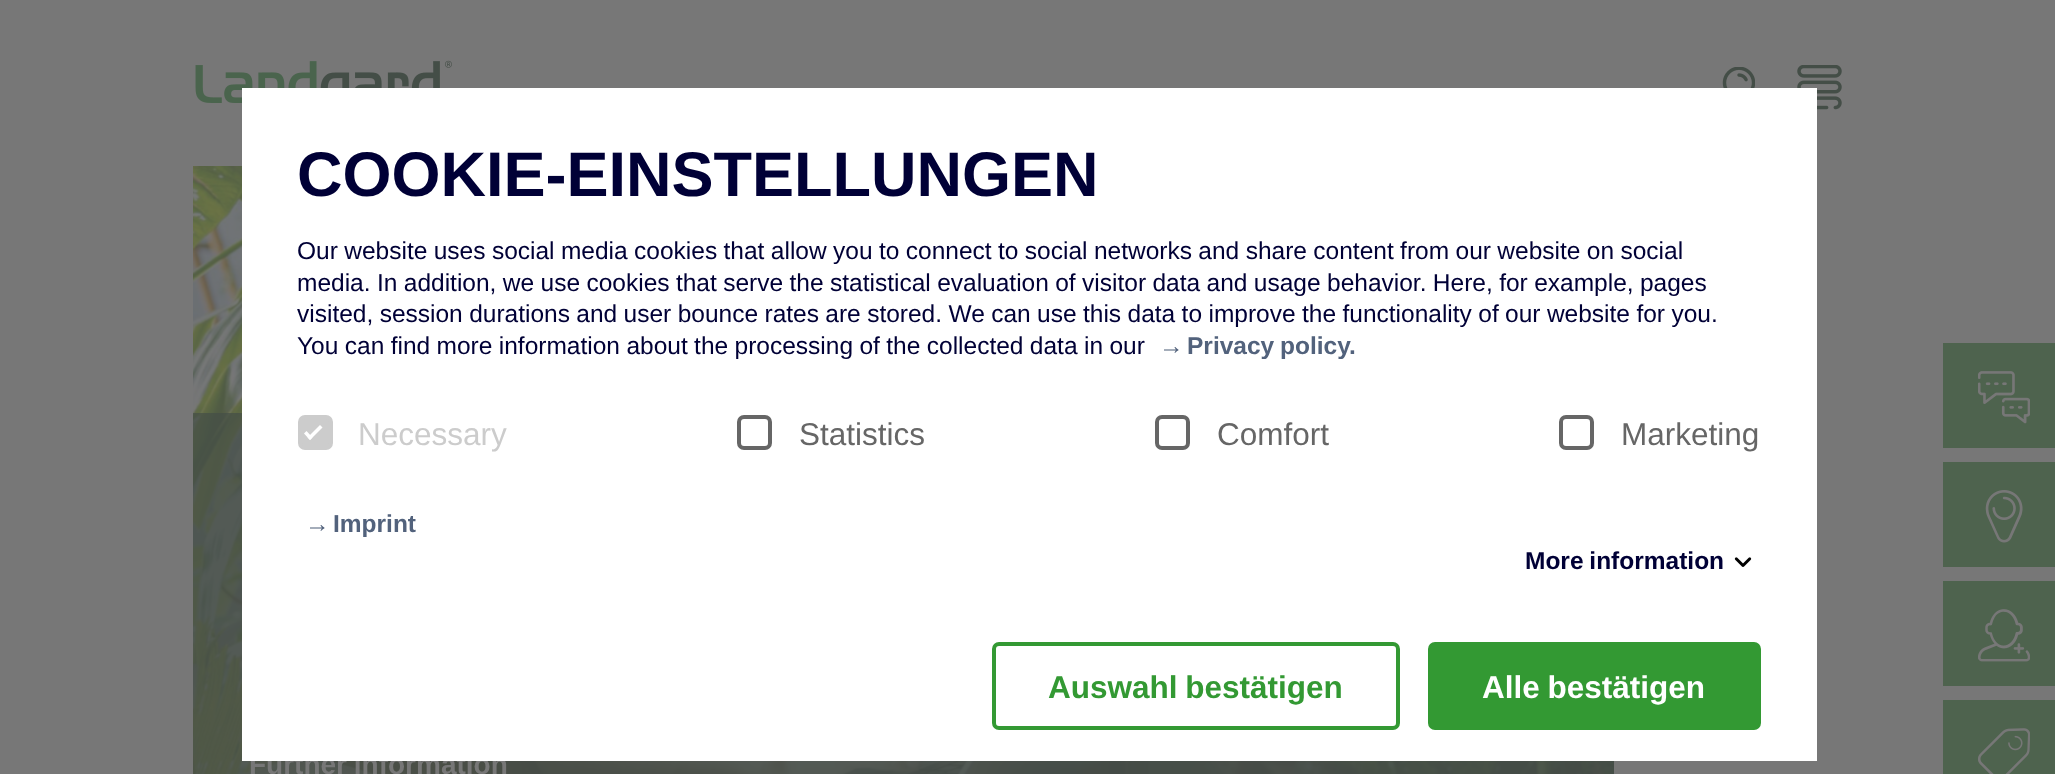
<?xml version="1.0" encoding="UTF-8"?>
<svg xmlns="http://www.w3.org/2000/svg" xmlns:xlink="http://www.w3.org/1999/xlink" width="2055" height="774">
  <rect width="100%" height="100%" fill="#777777" />
  <image x="195" y="60" width="257" height="43" xlink:href="image1.png" />
  <image x="1722" y="67" width="33" height="21" xlink:href="image2.png" />
  <image x="1797" y="65" width="45" height="45" xlink:href="image3.png" />
  <rect x="1943" y="343" width="112" height="105" fill="#4e634e" />
  <image x="1978" y="371" width="52" height="53" xlink:href="image5.png" />
  <rect x="1943" y="462" width="112" height="105" fill="#4e634e" />
  <image x="1985" y="490" width="38" height="53" xlink:href="image6.png" />
  <rect x="1943" y="581" width="112" height="105" fill="#4e634e" />
  <image x="1978" y="609" width="52" height="53" xlink:href="image7.png" />
  <rect x="1943" y="700" width="112" height="74" fill="#4e634e" />
  <image x="1978" y="728" width="52" height="46" xlink:href="image8.png" />
  <image x="193" y="166" width="1421" height="608" xlink:href="image9.png" />
  <rect x="193" y="413" width="1421" height="361" fill="#444e47" fill-opacity="0.7" />
  <text x="249" y="774" word-spacing="-1" style="font-family: Liberation Sans; font-size: 28px; font-weight: bold; fill: #777777">Further information</text>
  <rect x="242" y="88" width="1575" height="673" fill="#ffffff" />
  <image x="1734" y="557" width="18" height="10" xlink:href="image4.png" />
  <text x="333" y="532" style="font-family: Liberation Sans; font-size: 24.5px; font-weight: bold; fill: #52627c">Imprint</text>
  <text x="305" y="532" style="font-family: Liberation Sans; font-size: 24.5px; font-weight: bold; fill: #52627c">→</text>
  <rect x="1561" y="417" width="31" height="31" rx="5" fill="none" stroke="#666666" stroke-width="4" />
  <text x="1621" y="445" style="font-family: Liberation Sans; font-size: 31.5px; fill: #666666">Marketing</text>
  <rect x="1157" y="417" width="31" height="31" rx="5" fill="none" stroke="#666666" stroke-width="4" />
  <text x="1217" y="445" style="font-family: Liberation Sans; font-size: 31.5px; fill: #666666">Comfort</text>
  <rect x="739" y="417" width="31" height="31" rx="5" fill="none" stroke="#666666" stroke-width="4" />
  <text x="799" y="445" style="font-family: Liberation Sans; font-size: 31.5px; fill: #666666">Statistics</text>
  <rect x="300" y="417" width="31" height="31" rx="5" fill="#cccccc" stroke="#cccccc" stroke-width="4" />
  <path d="M 320 425 l 2.5 2.5 l -12.5 12.5 l -2.5 -2.5 z" fill="#ffffff" />
  <path d="M 306.5 431 l 6 6.5 l -2.5 2.5 l -6 -6.5 z" fill="#ffffff" />
  <text x="358" y="445" style="font-family: Liberation Sans; font-size: 31.5px; fill: #cccccc">Necessary</text>
  <text x="1187" y="354" word-spacing="-1" style="font-family: Liberation Sans; font-size: 24.5px; font-weight: bold; fill: #52627c">Privacy policy.</text>
  <text x="1159" y="354" style="font-family: Liberation Sans; font-size: 24.5px; font-weight: bold; fill: #52627c">→</text>
  <rect x="1429" y="643" width="331" height="86" rx="6" fill="#339933" stroke="#339933" stroke-width="2" />
  <text x="1482" y="698" word-spacing="-1" style="font-family: Liberation Sans; font-size: 31.5px; font-weight: bold; fill: #ffffff">Alle bestätigen</text>
  <rect x="994" y="644" width="404" height="84" rx="5" fill="none" stroke="#339933" stroke-width="4" />
  <text x="1048" y="698" word-spacing="-1" style="font-family: Liberation Sans; font-size: 31.5px; font-weight: bold; fill: #339933">Auswahl bestätigen</text>
  <text x="1525" y="569" word-spacing="-1" style="font-family: Liberation Sans; font-size: 24.5px; font-weight: bold; fill: #000036">More information</text>
  <text x="297" y="354" word-spacing="-0.4" style="font-family: Liberation Sans; font-size: 24.5px; fill: #000036">You can find more information about the processing of the collected data in our</text>
  <text x="297" y="322" word-spacing="-0.4" style="font-family: Liberation Sans; font-size: 24.5px; fill: #000036">visited, session durations and user bounce rates are stored. We can use this data to improve the functionality of our website for you.</text>
  <text x="297" y="291" word-spacing="-0.4" style="font-family: Liberation Sans; font-size: 24.5px; fill: #000036">media. In addition, we use cookies that serve the statistical evaluation of visitor data and usage behavior. Here, for example, pages</text>
  <text x="297" y="259" word-spacing="-0.4" style="font-family: Liberation Sans; font-size: 24.5px; fill: #000036">Our website uses social media cookies that allow you to connect to social networks and share content from our website on social</text>
  <text x="297" y="196" style="font-family: Liberation Sans; font-size: 63px; font-weight: bold; fill: #000036">COOKIE-EINSTELLUNGEN</text>
</svg>
